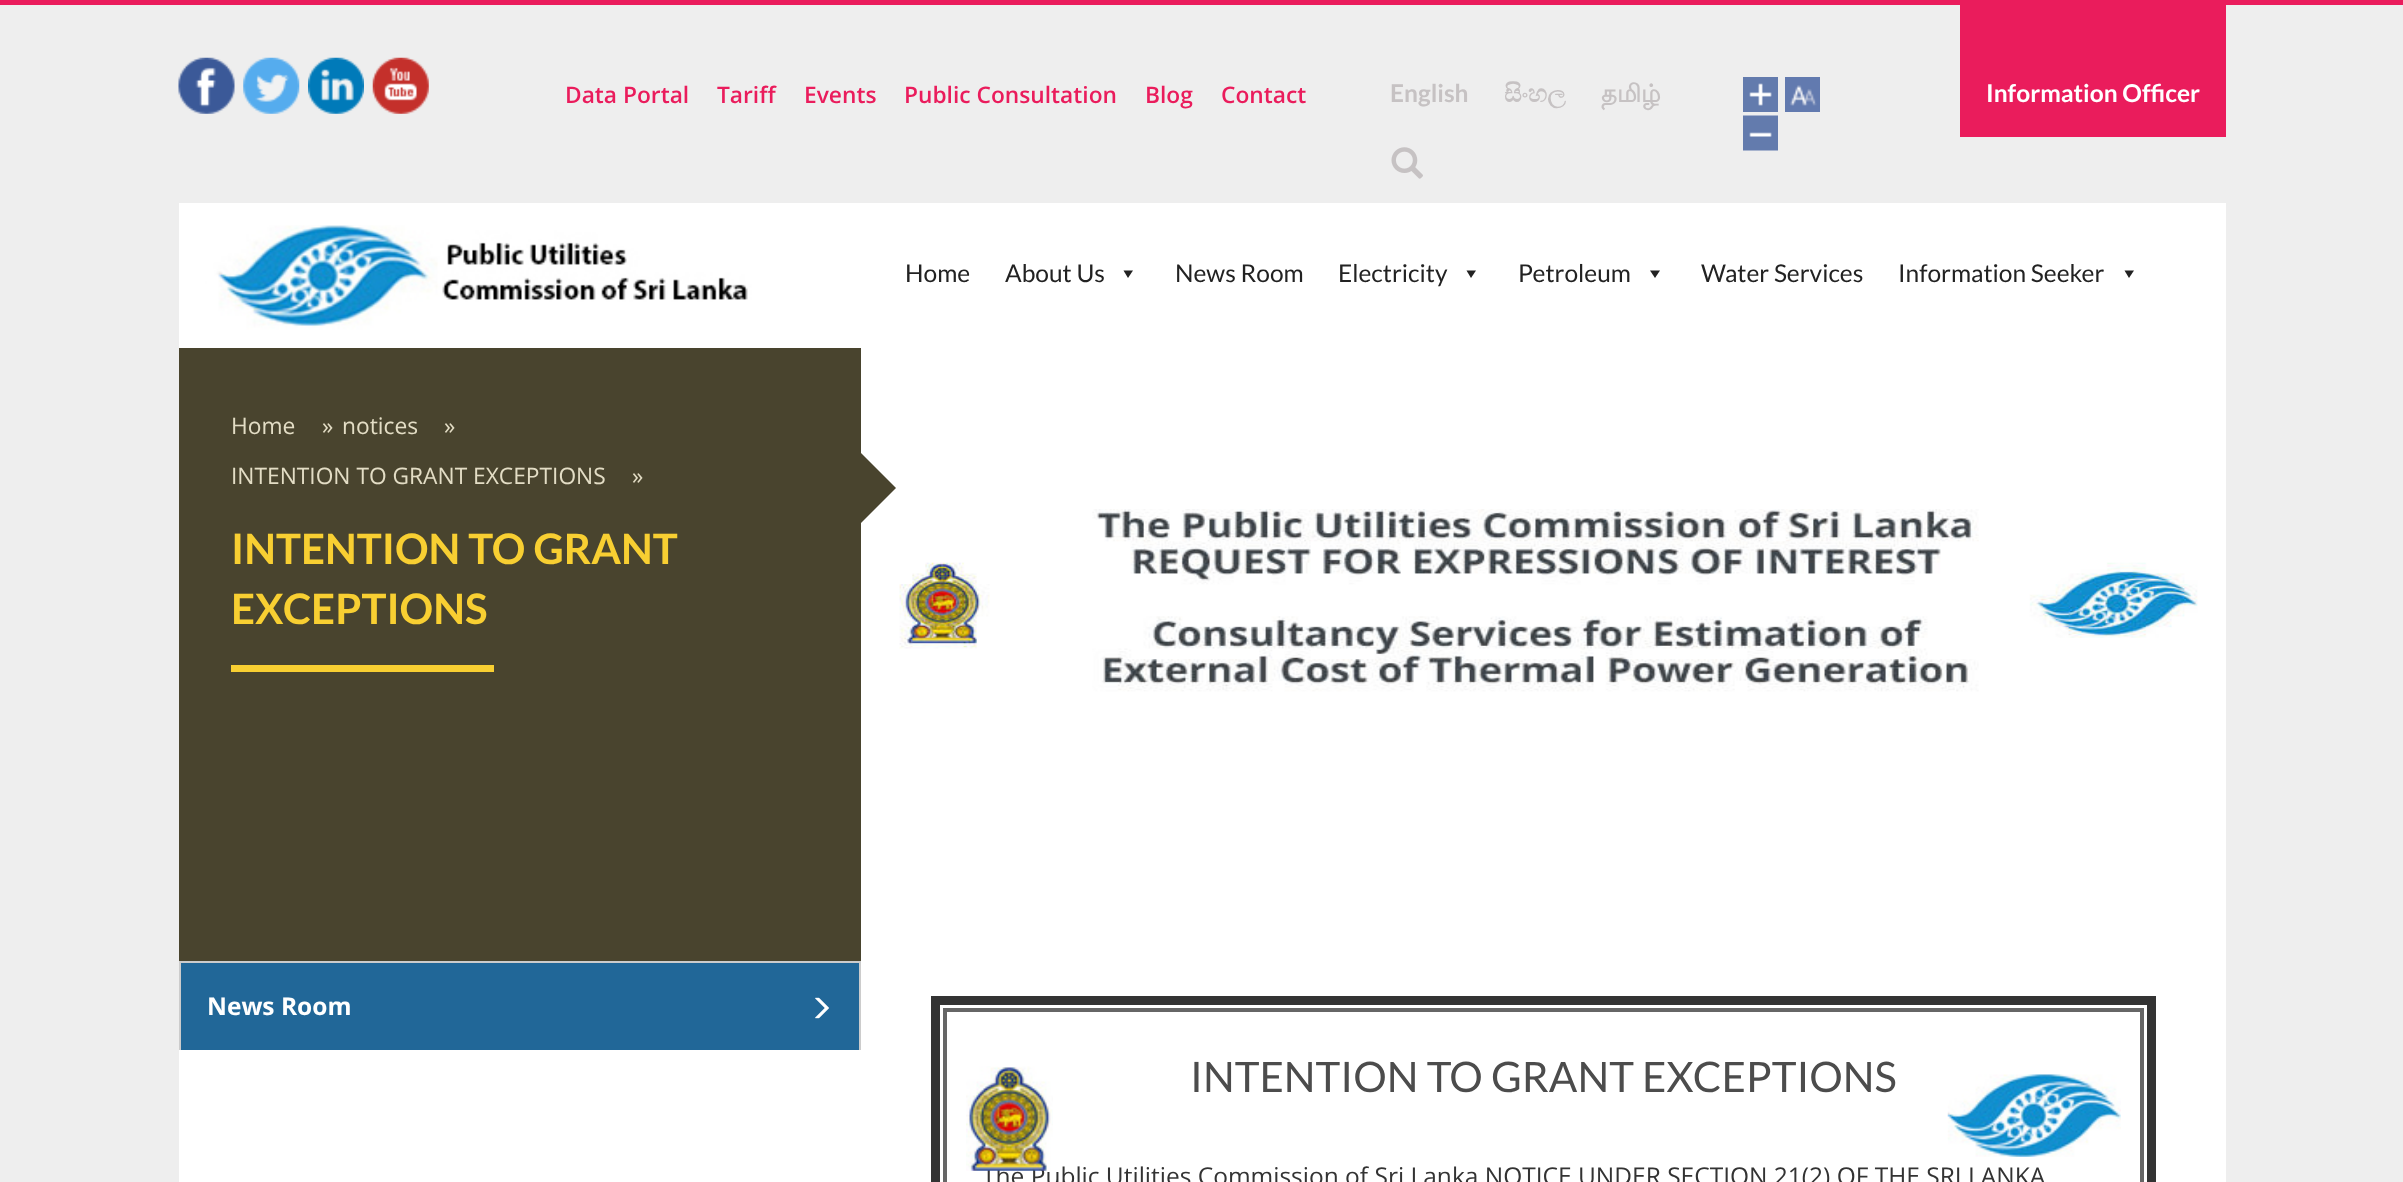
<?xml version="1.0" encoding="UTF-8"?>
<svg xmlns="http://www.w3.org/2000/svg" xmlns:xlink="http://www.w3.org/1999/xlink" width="2403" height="1182">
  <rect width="100%" height="100%" fill="#eeeeee" />
  <rect width="2403" height="5" fill="#ea1c5c" />
  <image x="178" y="57" width="57" height="57" xlink:href="image1.png" />
  <image x="243" y="57" width="57" height="57" xlink:href="image2.png" />
  <image x="308" y="57" width="56" height="57" xlink:href="image3.png" />
  <image x="372" y="57" width="57" height="57" xlink:href="image4.png" />
  <image x="1391" y="147" width="32" height="32" xlink:href="image5.png" />
  <image x="1743" y="77" width="35" height="35" xlink:href="image6.png" />
  <image x="1785" y="77" width="35" height="35" xlink:href="image7.png" />
  <image x="1743" y="115" width="35" height="36" xlink:href="image8.png" />
  <rect x="1960" y="5" width="266" height="132" fill="#ea1c5c" />
  <rect x="179" y="203" width="2047" height="145" fill="#ffffff" />
  <image x="205" y="225" width="570" height="123" xlink:href="image9.png" />
  <path d="M 1133 270.5 l -5 7.5 l -4.5 -7.5 z" fill="#222222" />
  <path d="M 1476 270.5 l -5 7.5 l -4.5 -7.5 z" fill="#222222" />
  <path d="M 1660 270.5 l -5 7.5 l -5 -7.5 z" fill="#222222" />
  <path d="M 2134 270.5 l -5 7.5 l -4.5 -7.5 z" fill="#222222" />
  <rect x="861" y="348" width="1365" height="834" fill="#ffffff" />
  <rect x="179" y="348" width="682" height="613" fill="#49442e" />
  <path d="M 861 523 v -70 l 35 35 z" fill="#49442e" />
  <rect x="231" y="665" width="263" height="7" fill="#f8cf32" />
  <image x="899" y="509" width="1299" height="183" xlink:href="image10.png" />
  <rect x="179" y="1050" width="682" height="132" fill="#ffffff" />
  <rect x="181" y="963" width="678" height="87" fill="#216798" />
  <rect x="179" y="961" width="682" height="2" fill="#cccccc" />
  <rect x="859" y="961" width="2" height="89" fill="#cccccc" />
  <rect x="179" y="961" width="2" height="89" fill="#cccccc" />
  <image x="815" y="997" width="14" height="22" xlink:href="image11.png" />
  <rect x="935.5" y="1000.5" width="1216" height="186" fill="none" stroke="#333333" stroke-width="9" />
  <rect x="945" y="1010" width="1197" height="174" fill="none" stroke="#666666" stroke-width="4" />
  <image x="1947" y="1074" width="174" height="83" xlink:href="image13.png" />
  <text x="565" y="103" style="font-family: Open Sans; font-size: 22.75px; font-weight: 600; fill: #ea1c5c">Data Portal</text>
  <text x="717" y="103" style="font-family: Open Sans; font-size: 22.75px; font-weight: 600; fill: #ea1c5c">Tariff</text>
  <text x="804" y="103" style="font-family: Open Sans; font-size: 22.75px; font-weight: 600; fill: #ea1c5c">Events</text>
  <text x="904" y="103" style="font-family: Open Sans; font-size: 22.75px; font-weight: 600; fill: #ea1c5c">Public Consultation</text>
  <text x="1145" y="103" style="font-family: Open Sans; font-size: 22.75px; font-weight: 600; fill: #ea1c5c">Blog</text>
  <text x="1221" y="103" style="font-family: Open Sans; font-size: 22.75px; font-weight: 600; fill: #ea1c5c">Contact</text>
  <text x="1390" y="102" style="font-family: Lato; font-size: 24.5px; font-weight: bold; fill: #c6c2c3">English</text>
  <text x="1504" y="102" style="font-family: FreeSerif; font-size: 24.5px; font-weight: bold; fill: #c6c2c3">සිංහල</text>
  <text x="1601" y="102" style="font-family: Lohit Tamil; font-size: 24.5px; font-weight: bold; fill: #c6c2c3">தமிழ்</text>
  <text x="1986" y="102" style="font-family: Lato; font-size: 24.5px; font-weight: bold; fill: #ffffff">Information Officer</text>
  <text x="905" y="282" style="font-family: Lato; font-size: 24.5px; fill: #222222">Home</text>
  <text x="1005" y="282" style="font-family: Lato; font-size: 24.5px; fill: #222222">About Us</text>
  <text x="1175" y="282" style="font-family: Lato; font-size: 24.5px; fill: #222222">News Room</text>
  <text x="1338" y="282" style="font-family: Lato; font-size: 24.5px; fill: #222222">Electricity</text>
  <text x="1518" y="282" style="font-family: Lato; font-size: 24.5px; fill: #222222">Petroleum</text>
  <text x="1701" y="282" style="font-family: Lato; font-size: 24.5px; fill: #222222">Water Services</text>
  <text x="1898" y="282" style="font-family: Lato; font-size: 24.5px; fill: #222222">Information Seeker</text>
  <text x="231" y="434" style="font-family: Open Sans; font-size: 22.75px; fill: #e3ddc5">Home</text>
  <text x="322" y="434" style="font-family: Open Sans; font-size: 22.75px; fill: #e3ddc5">»</text>
  <text x="342" y="434" style="font-family: Open Sans; font-size: 22.75px; fill: #e3ddc5">notices</text>
  <text x="444" y="434" style="font-family: Open Sans; font-size: 22.75px; fill: #e3ddc5">»</text>
  <text x="231" y="484" style="font-family: Open Sans; font-size: 22.75px; fill: #e3ddc5">INTENTION TO GRANT EXCEPTIONS</text>
  <text x="632" y="484" style="font-family: Open Sans; font-size: 22.75px; fill: #e3ddc5">»</text>
  <text x="231" y="564" style="font-family: Lato; font-size: 42px; font-weight: bold; fill: #f8cf32">INTENTION TO GRANT</text>
  <text x="231" y="624" style="font-family: Lato; font-size: 42px; font-weight: bold; fill: #f8cf32">EXCEPTIONS</text>
  <text x="207" y="1015" style="font-family: Open Sans; font-size: 24.5px; font-weight: bold; fill: #ffffff">News Room</text>
  <text x="1190" y="1092" style="font-family: Lato; font-size: 42px; fill: #4c4c4c">INTENTION TO GRANT EXCEPTIONS</text>
  <text x="982" y="1185" style="font-family: Open Sans; font-size: 24.5px; fill: #333333">The Public Utilities Commission of Sri Lanka NOTICE UNDER SECTION 21(2) OF THE SRI LANKA</text>
  <image x="966" y="1066" width="87" height="105" xlink:href="image12.png" />
</svg>
